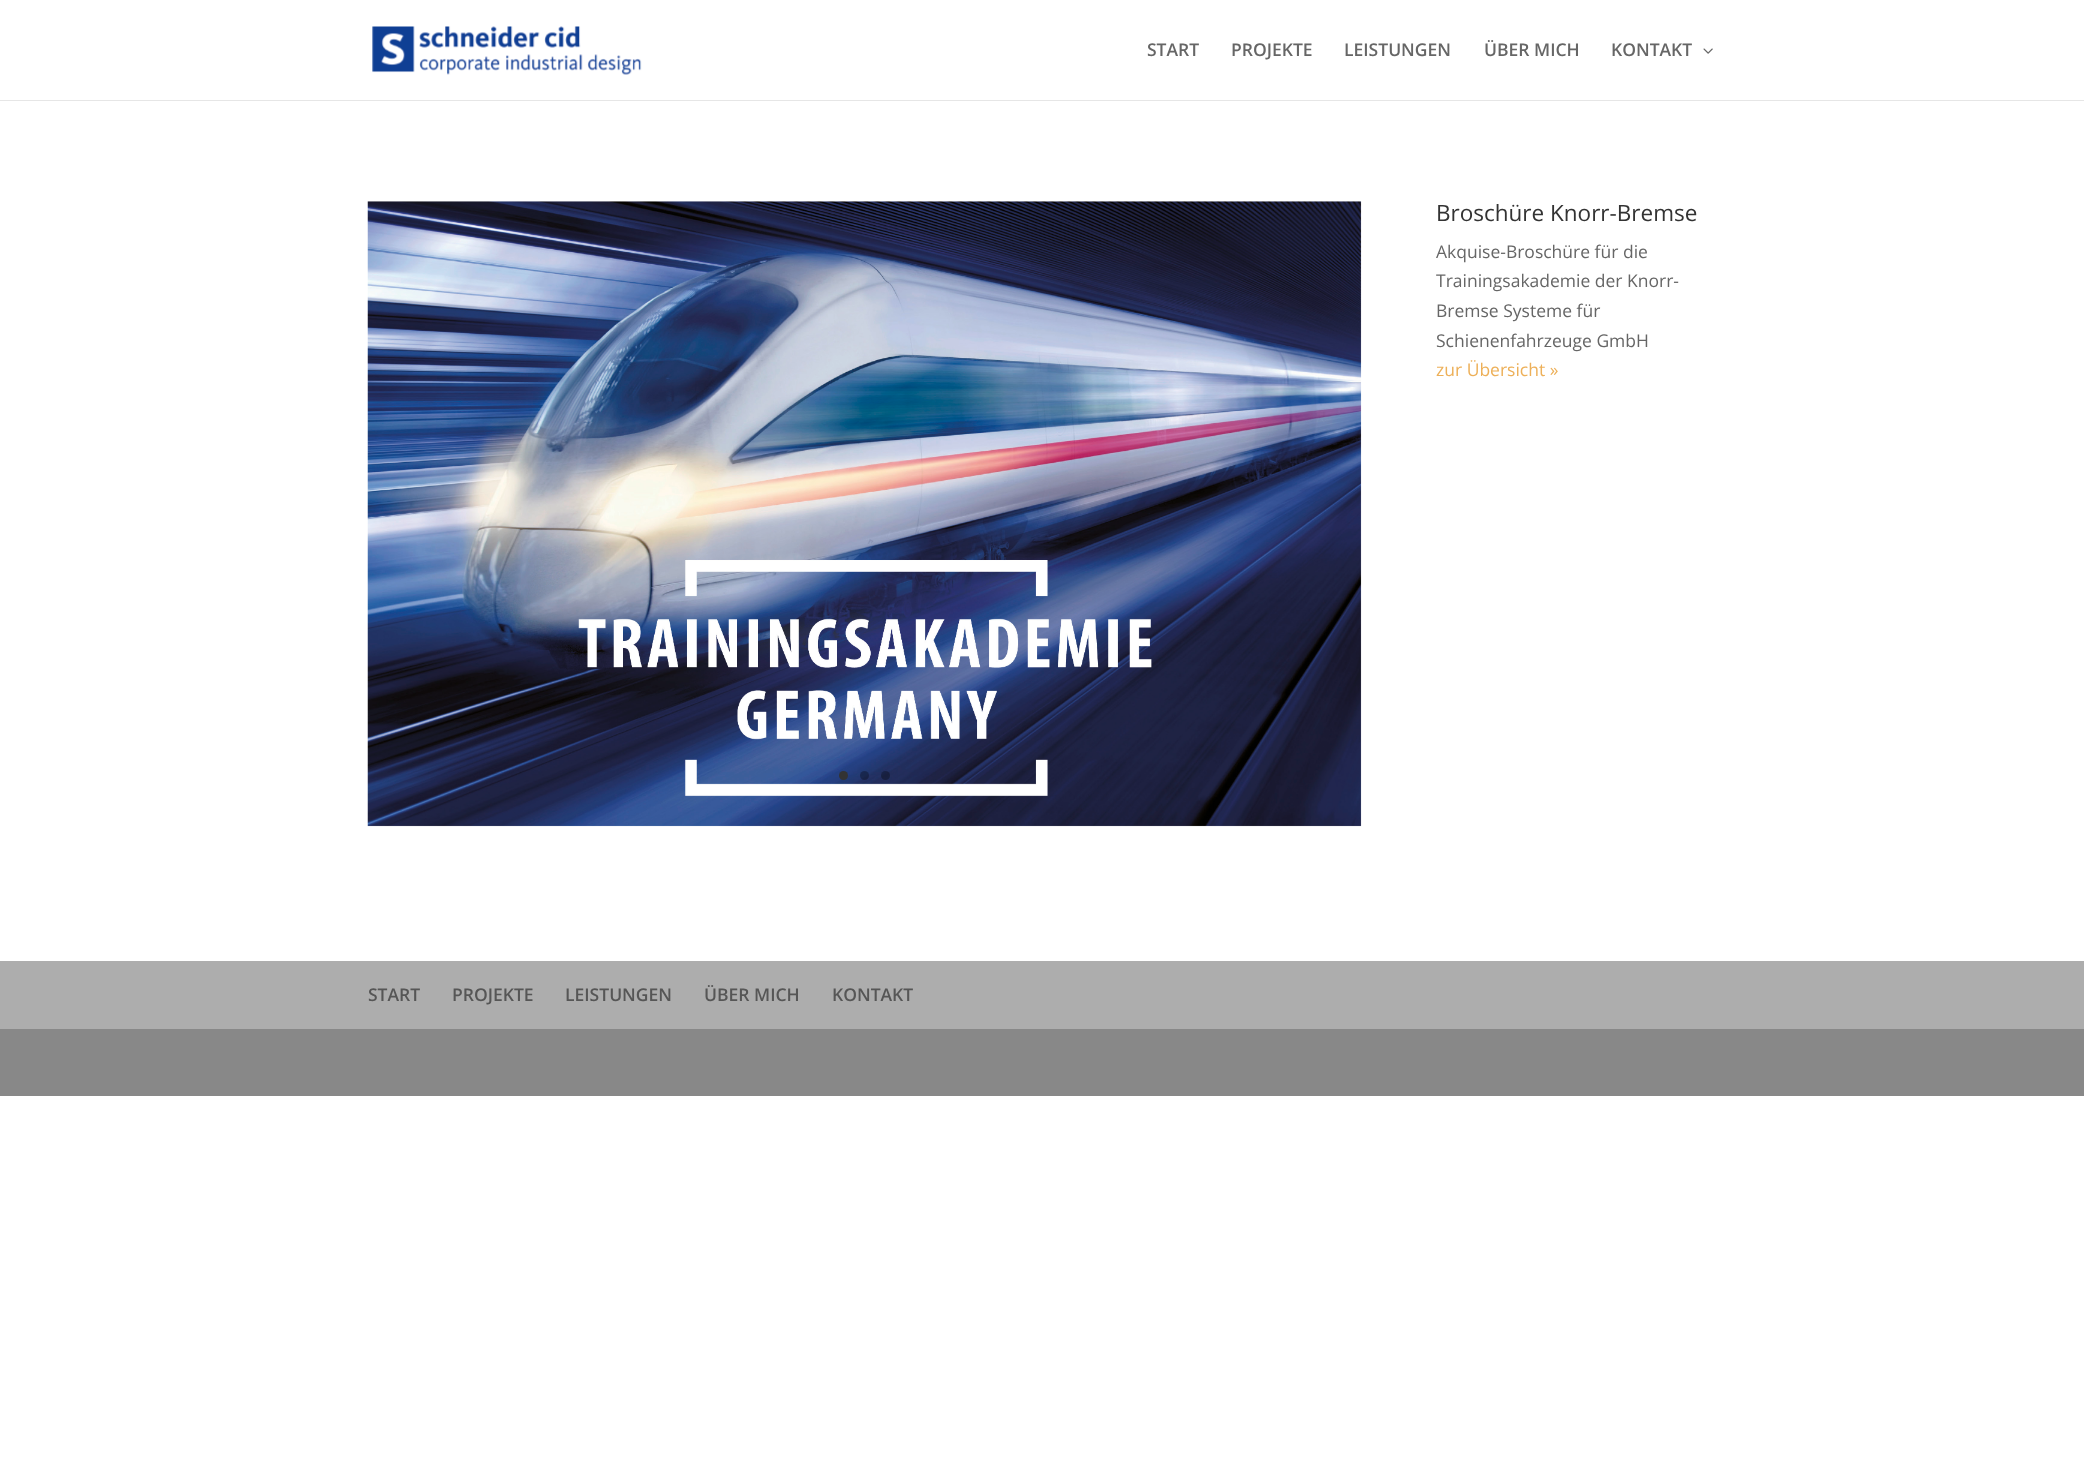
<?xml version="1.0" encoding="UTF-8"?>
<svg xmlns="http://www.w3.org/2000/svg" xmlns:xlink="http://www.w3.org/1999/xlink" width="2084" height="1467">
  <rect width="100%" height="100%" fill="#ffffff" />
  <rect y="100" width="2084" height="1" fill="#e6e6e6" />
  <image x="372" y="26" width="270" height="49" xlink:href="image1.png" />
  <image x="1703" y="48" width="10" height="6" xlink:href="image2.png" />
  <image x="367" y="201" width="995" height="626" xlink:href="image3.png" />
  <circle cx="843.5" cy="775.5" r="4.5" fill="#333333" />
  <circle cx="864.5" cy="775.5" r="4.5" fill="#000000" fill-opacity="0.3" />
  <circle cx="885.5" cy="775.5" r="4.5" fill="#000000" fill-opacity="0.3" />
  <rect y="961" width="2084" height="68" fill="#adadad" />
  <rect y="1029" width="2084" height="67" fill="#888888" />
  <text x="1147" y="56" style="font-family: Open Sans; font-size: 17.5px; font-weight: 600; fill: #666666">START</text>
  <text x="1231" y="56" style="font-family: Open Sans; font-size: 17.5px; font-weight: 600; fill: #666666">PROJEKTE</text>
  <text x="1344" y="56" style="font-family: Open Sans; font-size: 17.5px; font-weight: 600; fill: #666666">LEISTUNGEN</text>
  <text x="1484" y="56" style="font-family: Open Sans; font-size: 17.5px; font-weight: 600; fill: #666666">ÜBER MICH</text>
  <text x="1611" y="56" style="font-family: Open Sans; font-size: 17.5px; font-weight: 600; fill: #666666">KONTAKT</text>
  <text x="1436" y="221" style="font-family: Open Sans; font-size: 22.5px; fill: #333333">Broschüre Knorr-Bremse</text>
  <text x="1436" y="258" style="font-family: Open Sans; font-size: 17.5px; fill: #666666">Akquise-Broschüre für die</text>
  <text x="1436" y="287" style="font-family: Open Sans; font-size: 17.5px; fill: #666666">Trainingsakademie der Knorr-</text>
  <text x="1436" y="317" style="font-family: Open Sans; font-size: 17.5px; fill: #666666">Bremse Systeme für</text>
  <text x="1436" y="347" style="font-family: Open Sans; font-size: 17.5px; fill: #666666">Schienenfahrzeuge GmbH</text>
  <text x="1436" y="376" style="font-family: Open Sans; font-size: 17.5px; fill: #edb059">zur Übersicht »</text>
  <text x="368" y="1001" style="font-family: Open Sans; font-size: 17.5px; font-weight: 600; fill: #565656">START</text>
  <text x="452" y="1001" style="font-family: Open Sans; font-size: 17.5px; font-weight: 600; fill: #565656">PROJEKTE</text>
  <text x="565" y="1001" style="font-family: Open Sans; font-size: 17.5px; font-weight: 600; fill: #565656">LEISTUNGEN</text>
  <text x="704" y="1001" style="font-family: Open Sans; font-size: 17.5px; font-weight: 600; fill: #565656">ÜBER MICH</text>
  <text x="832" y="1001" style="font-family: Open Sans; font-size: 17.5px; font-weight: 600; fill: #565656">KONTAKT</text>
</svg>
